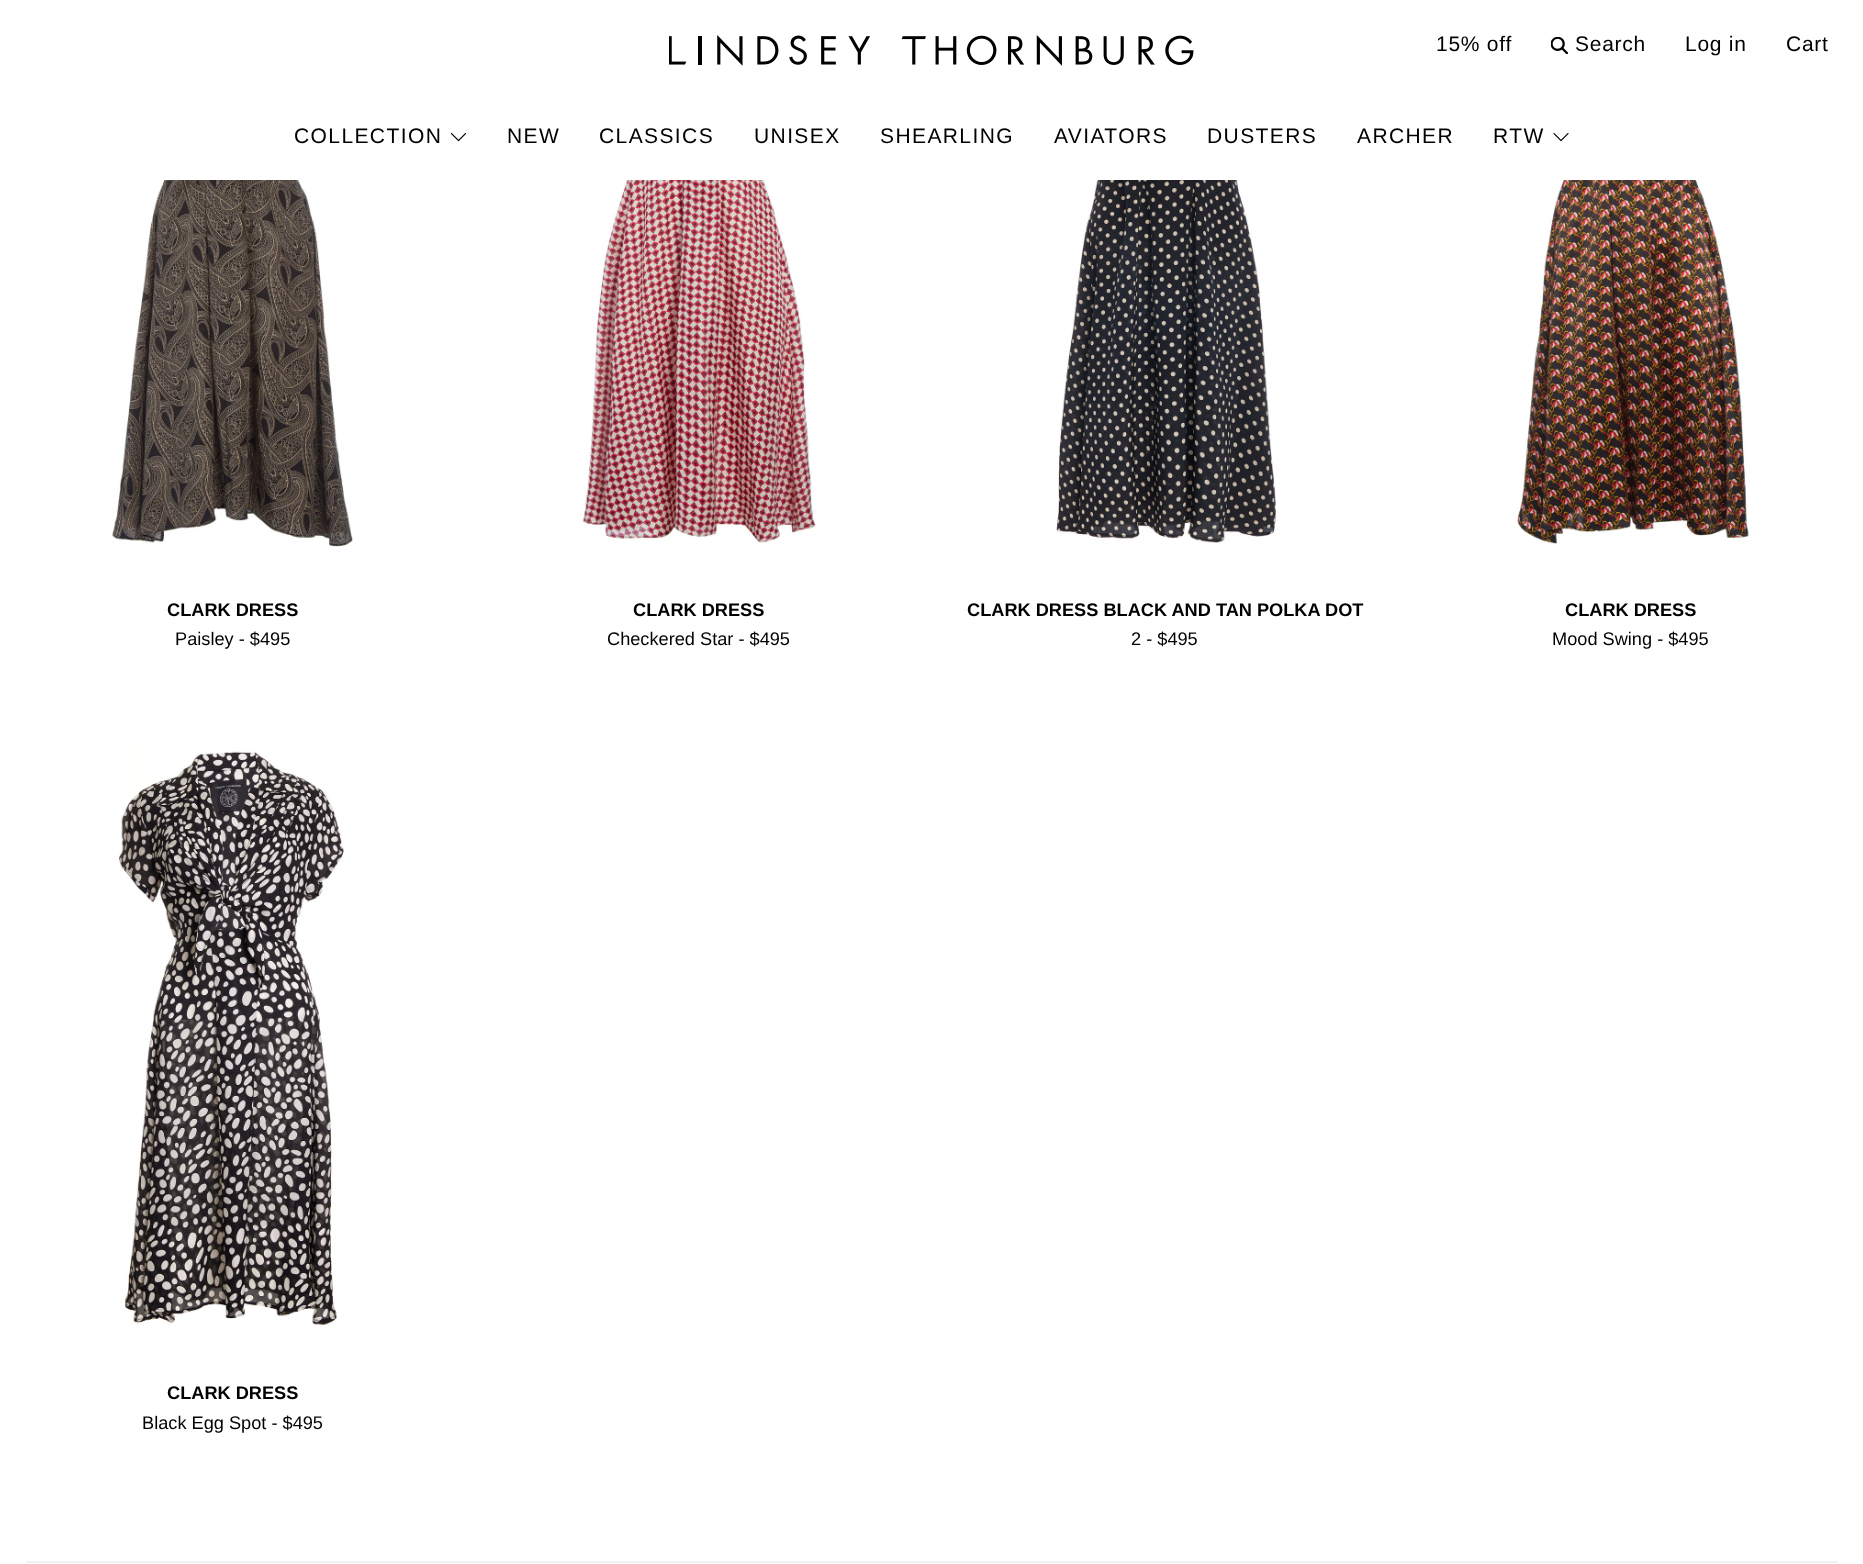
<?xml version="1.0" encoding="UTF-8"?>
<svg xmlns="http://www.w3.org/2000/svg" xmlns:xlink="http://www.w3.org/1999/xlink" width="1863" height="1564">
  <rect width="100%" height="100%" fill="#ffffff" />
  <image x="669" y="35" width="525" height="31" xlink:href="image1.png" />
  <image x="1551" y="37" width="17" height="17" xlink:href="image2.png" />
  <image x="450" y="133" width="17" height="9" xlink:href="image3.png" />
  <image x="1553" y="133" width="16" height="9" xlink:href="image4.png" />
  <image x="111" y="180" width="242" height="367" xlink:href="image5.png" />
  <image x="580" y="180" width="236" height="363" xlink:href="image6.png" />
  <image x="1047" y="180" width="237" height="364" xlink:href="image7.png" />
  <image x="1515" y="180" width="234" height="364" xlink:href="image8.png" />
  <image x="118" y="724" width="226" height="602" xlink:href="image9.png" />
  <rect x="26" y="1561" width="1812" height="2" fill="#f2f2f2" />
  <text x="1436" y="51" style="font-family: Liberation Sans; font-size: 21px; letter-spacing: 0.75px; fill: #000000">15% off</text>
  <text x="1575" y="51" style="font-family: Liberation Sans; font-size: 21px; letter-spacing: 0.75px; fill: #000000">Search</text>
  <text x="1685" y="51" style="font-family: Liberation Sans; font-size: 21px; letter-spacing: 0.75px; fill: #000000">Log in</text>
  <text x="1786" y="51" style="font-family: Liberation Sans; font-size: 21px; letter-spacing: 0.75px; fill: #000000">Cart</text>
  <text x="294" y="143" style="font-family: Liberation Sans; font-size: 21px; letter-spacing: 1.4px; fill: #000000">COLLECTION</text>
  <text x="507" y="143" style="font-family: Liberation Sans; font-size: 21px; letter-spacing: 1.4px; fill: #000000">NEW</text>
  <text x="599" y="143" style="font-family: Liberation Sans; font-size: 21px; letter-spacing: 1.4px; fill: #000000">CLASSICS</text>
  <text x="754" y="143" style="font-family: Liberation Sans; font-size: 21px; letter-spacing: 1.4px; fill: #000000">UNISEX</text>
  <text x="880" y="143" style="font-family: Liberation Sans; font-size: 21px; letter-spacing: 1.4px; fill: #000000">SHEARLING</text>
  <text x="1054" y="143" style="font-family: Liberation Sans; font-size: 21px; letter-spacing: 1.4px; fill: #000000">AVIATORS</text>
  <text x="1207" y="143" style="font-family: Liberation Sans; font-size: 21px; letter-spacing: 1.4px; fill: #000000">DUSTERS</text>
  <text x="1357" y="143" style="font-family: Liberation Sans; font-size: 21px; letter-spacing: 1.4px; fill: #000000">ARCHER</text>
  <text x="1493" y="143" style="font-family: Liberation Sans; font-size: 21px; letter-spacing: 1.4px; fill: #000000">RTW</text>
  <text x="167" y="616" style="font-family: Liberation Sans; font-size: 18.2px; font-weight: bold; fill: #000000">CLARK DRESS</text>
  <text x="175" y="645" style="font-family: Liberation Sans; font-size: 18.2px; fill: #000000">Paisley - $495</text>
  <text x="633" y="616" style="font-family: Liberation Sans; font-size: 18.2px; font-weight: bold; fill: #000000">CLARK DRESS</text>
  <text x="607" y="645" style="font-family: Liberation Sans; font-size: 18.2px; fill: #000000">Checkered Star - $495</text>
  <text x="967" y="616" style="font-family: Liberation Sans; font-size: 18.2px; font-weight: bold; fill: #000000">CLARK DRESS BLACK AND TAN POLKA DOT</text>
  <text x="1131" y="645" style="font-family: Liberation Sans; font-size: 18.2px; fill: #000000">2 - $495</text>
  <text x="1565" y="616" style="font-family: Liberation Sans; font-size: 18.2px; font-weight: bold; fill: #000000">CLARK DRESS</text>
  <text x="1552" y="645" style="font-family: Liberation Sans; font-size: 18.2px; fill: #000000">Mood Swing - $495</text>
  <text x="167" y="1399" style="font-family: Liberation Sans; font-size: 18.2px; font-weight: bold; fill: #000000">CLARK DRESS</text>
  <text x="142" y="1429" style="font-family: Liberation Sans; font-size: 18.2px; fill: #000000">Black Egg Spot - $495</text>
</svg>
